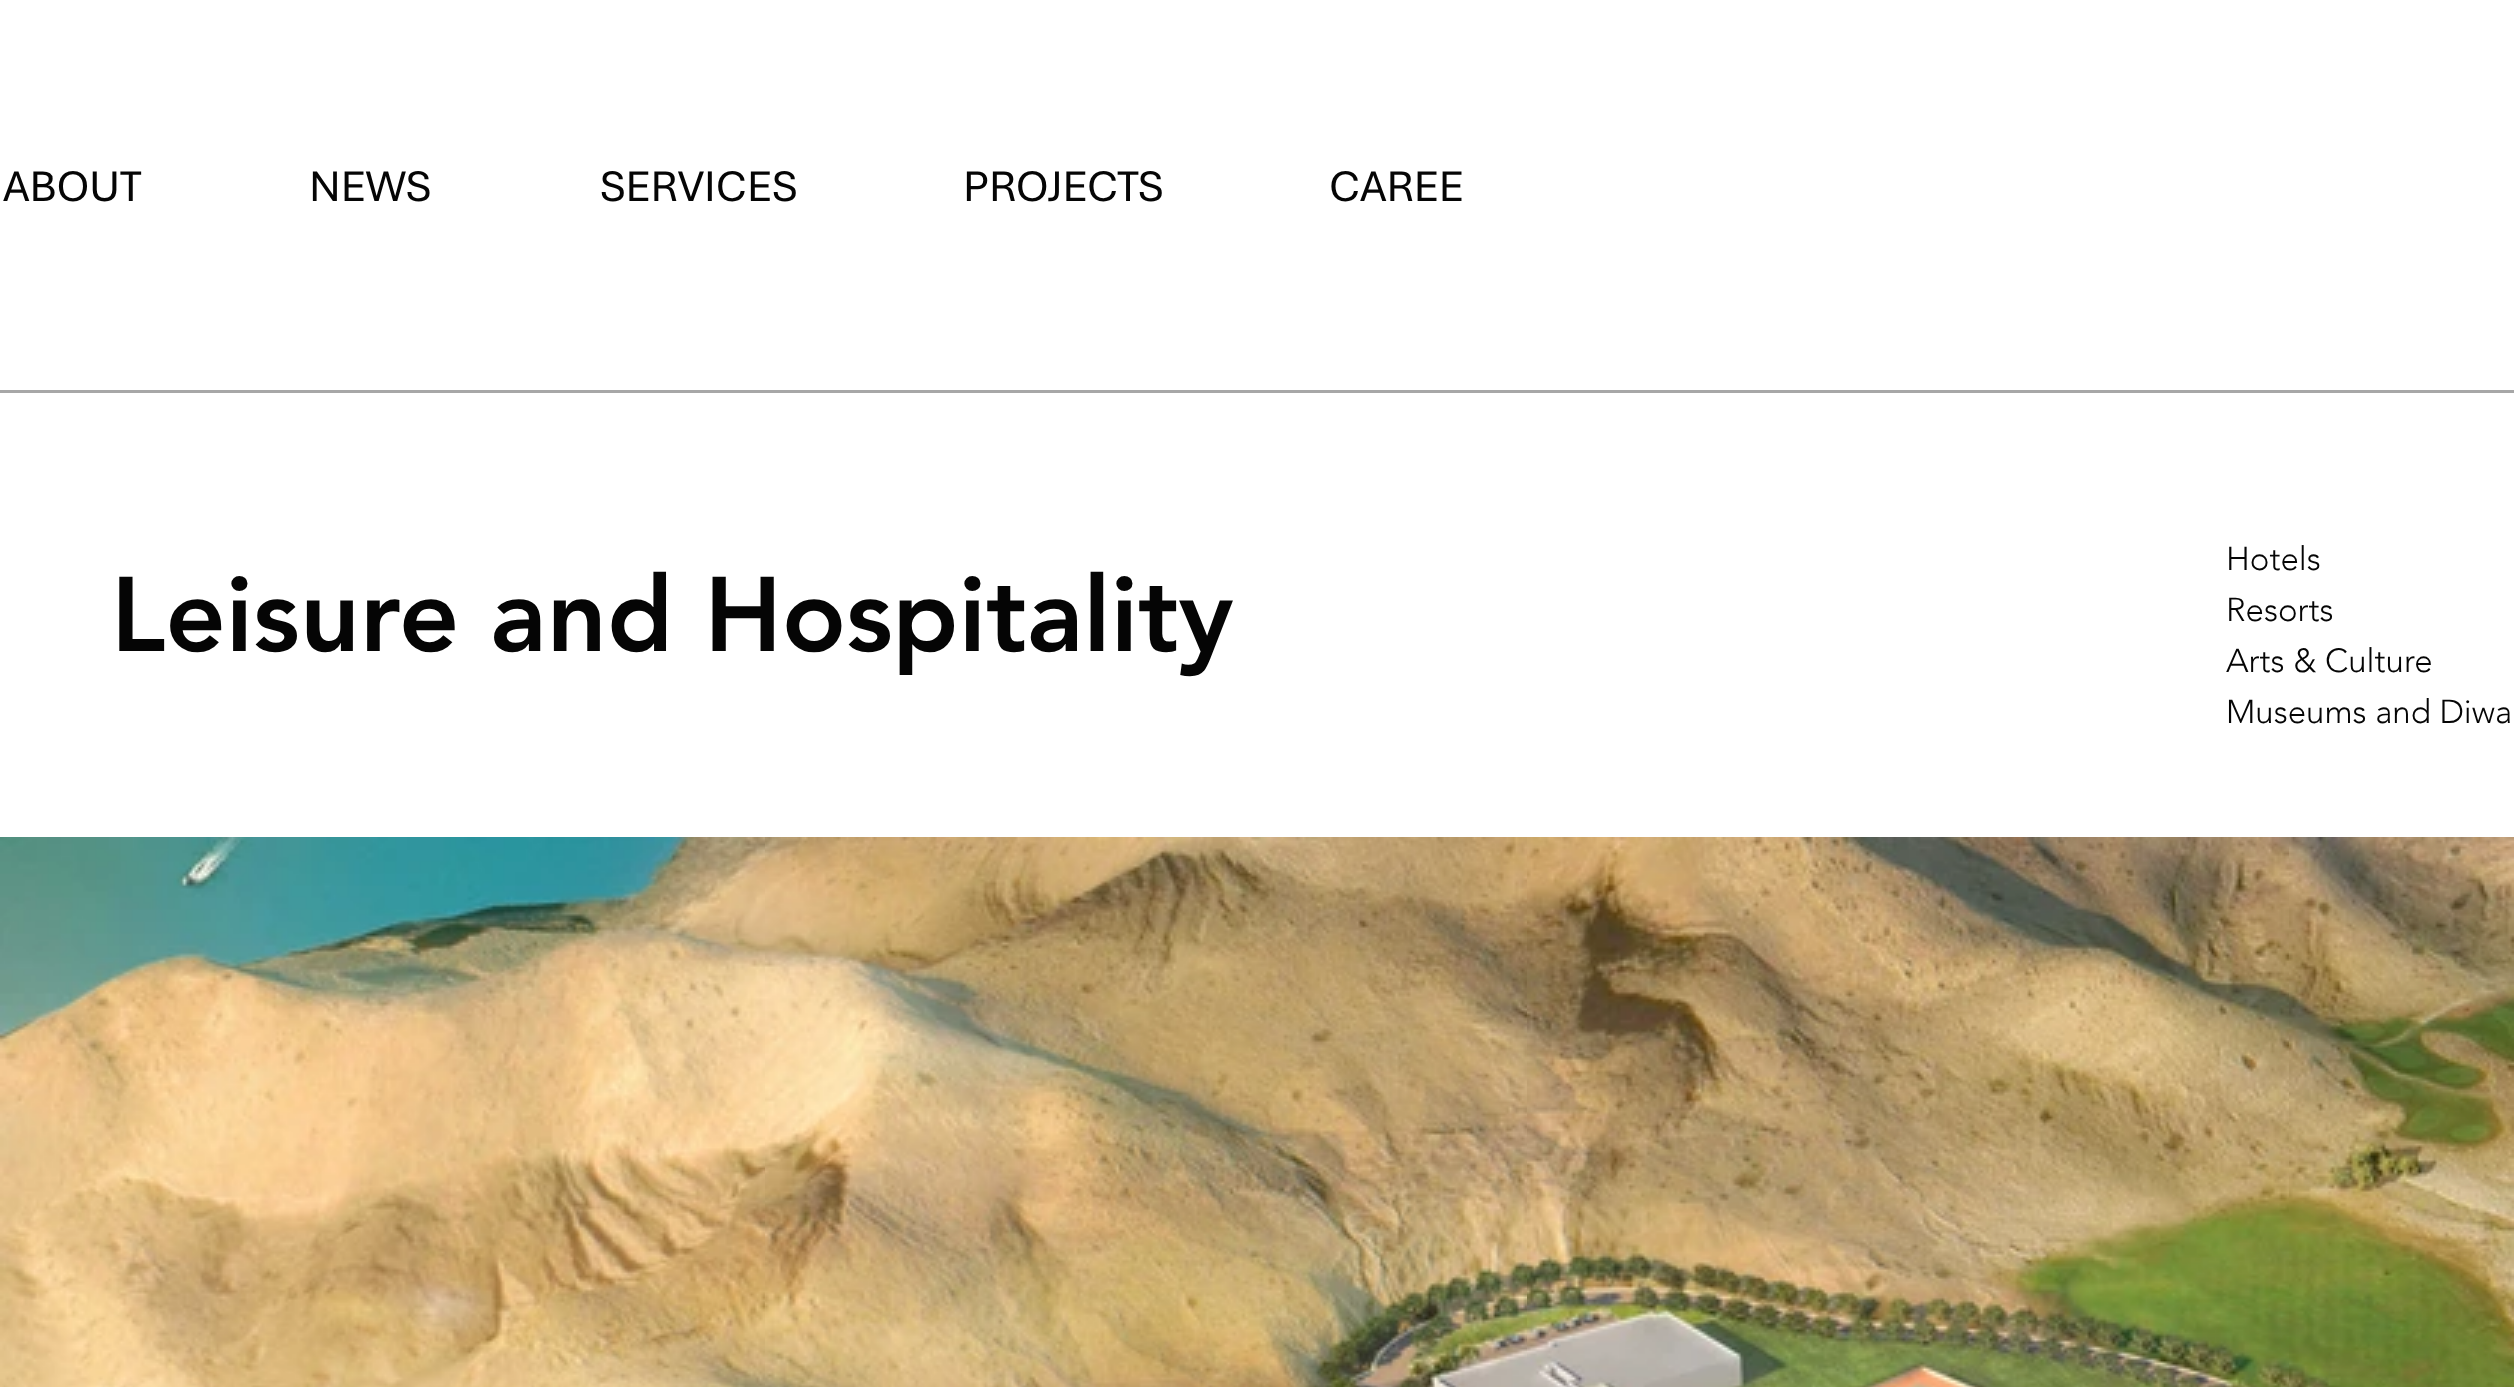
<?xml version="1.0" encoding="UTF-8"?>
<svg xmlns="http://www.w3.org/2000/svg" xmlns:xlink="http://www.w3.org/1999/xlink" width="2514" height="1387">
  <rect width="100%" height="100%" fill="#ffffff" />
  <rect y="390" width="2514" height="3" fill="#a7a7a7" />
  <image x="0" y="837" width="2514" height="550" xlink:href="image1.png" />
  <text x="3" y="201" style="font-family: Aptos; font-size: 45px; fill: #050505">ABOUT</text>
  <text x="309" y="201" style="font-family: Aptos; font-size: 45px; fill: #050505">NEWS</text>
  <text x="600" y="201" style="font-family: Aptos; font-size: 45px; fill: #050505">SERVICES</text>
  <text x="963" y="201" style="font-family: Aptos; font-size: 45px; fill: #050505">PROJECTS</text>
  <text x="1329" y="201" style="font-family: Aptos; font-size: 45px; fill: #050505">CAREE</text>
  <text x="111" y="651" style="font-family: 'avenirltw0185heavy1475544'; font-size: 105px; font-weight: 900; fill: #050505">Leisure and Hospitality</text>
  <text x="2226" y="570" style="font-family: 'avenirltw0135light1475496'; font-size: 33px; font-weight: 300; fill: #050505">Hotels</text>
  <text x="2226" y="621" style="font-family: 'avenirltw0135light1475496'; font-size: 33px; font-weight: 300; fill: #050505">Resorts</text>
  <text x="2226" y="672" style="font-family: 'avenirltw0135light1475496'; font-size: 33px; font-weight: 300; fill: #050505">Arts &amp; Culture</text>
  <text x="2226" y="723" style="font-family: 'avenirltw0135light1475496'; font-size: 33px; font-weight: 300; fill: #050505">Museums and Diwa</text>
</svg>
